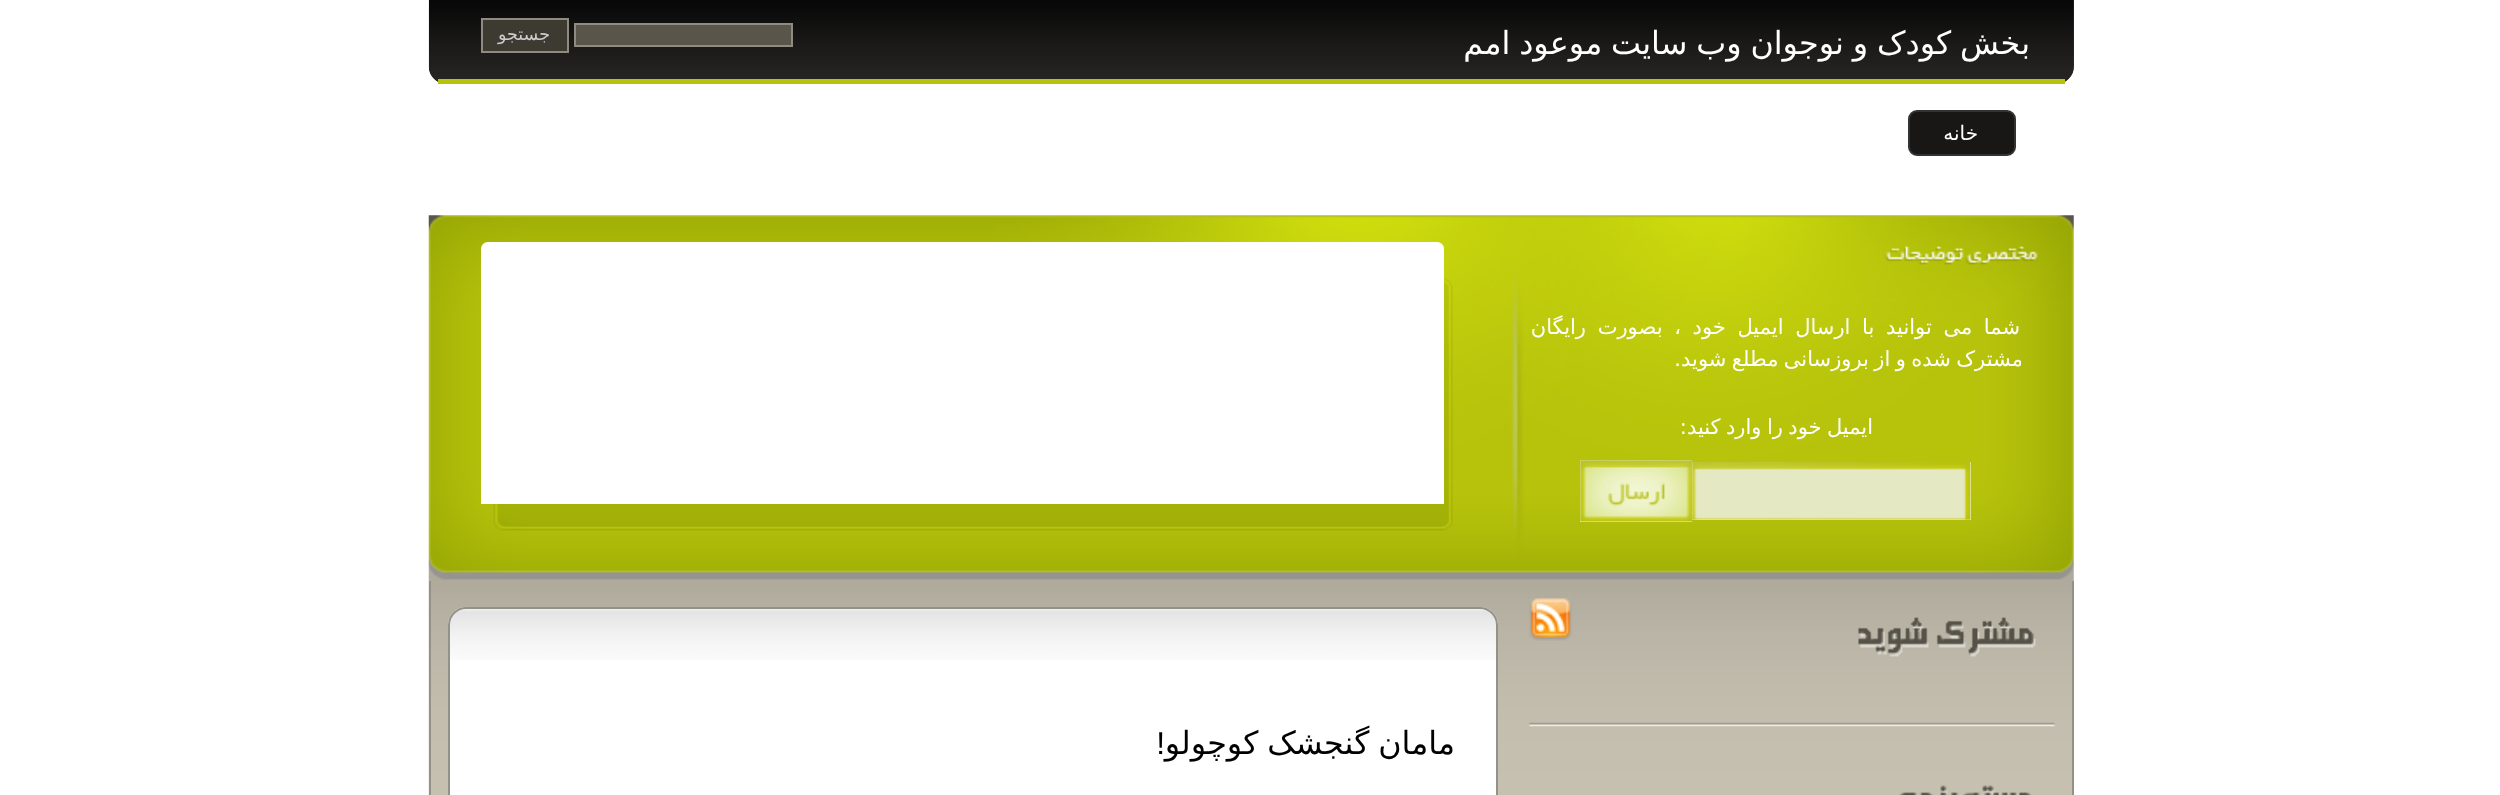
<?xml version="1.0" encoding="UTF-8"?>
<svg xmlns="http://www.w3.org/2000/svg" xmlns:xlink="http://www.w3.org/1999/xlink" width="2500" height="795">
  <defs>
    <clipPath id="clip1"><rect x="1531" y="312" width="490" height="236" /></clipPath>
  </defs>
  <rect width="100%" height="100%" fill="#ffffff" />
  <path d="M 429 0 h 1645 v 66 c 0 10 -8 18 -18 18 h -1609 c -10 0 -18 -8 -18 -18 z" fill="#333333" />
  <image x="428" y="0" width="1646" height="82" xlink:href="image1.png" />
  <rect x="438" y="79" width="1627" height="5" fill="#b7c30b" />
  <rect x="575" y="24" width="217" height="22" fill="#59554a" stroke="#8f8b80" stroke-width="2" />
  <rect x="482" y="19" width="86" height="33" fill="#3d3a31" stroke="#8f8b80" stroke-width="2" />
  <rect x="1909" y="111" width="106" height="44" rx="8" fill="#181716" stroke="#333333" stroke-width="2" />
  <image x="428" y="215" width="1646" height="366" xlink:href="image2.png" />
  <rect x="1692" y="462" width="279" height="58" fill="#ffffff" />
  <image x="1692" y="462" width="279" height="58" xlink:href="image3.png" />
  <rect x="1580" y="460" width="112" height="62" fill="#efefef" />
  <image x="1580" y="460" width="113" height="62" xlink:href="image4.png" />
  <path d="M 488 242 h 949 c 4 0 7 3 7 7 v 255 h -963 v -255 c 0 -4 3 -7 7 -7 z" fill="#ffffff" />
  <image x="428" y="581" width="1644" height="214" xlink:href="image5.png" />
  <rect x="2072" y="581" width="2" height="214" fill="#949188" />
  <rect x="429" y="581" width="2" height="214" fill="#949188" />
  <image x="1858" y="617" width="178" height="40" xlink:href="image6.png" />
  <image x="1529" y="598" width="43" height="43" xlink:href="image7.png" />
  <image x="1529" y="722" width="526" height="5" xlink:href="image8.png" />
  <image x="1899" y="785" width="133" height="10" xlink:href="image9.png" />
  <rect x="448" y="607" width="1050" height="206" rx="18" fill="#ffffff" />
  <image x="448" y="609" width="1050" height="51" xlink:href="image10.png" />
  <rect x="449" y="608" width="1048" height="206" rx="17" fill="none" stroke="#949188" stroke-width="2" />
  <text x="2030" y="54" word-spacing="-1.25" style="font-family: DejaVu Sans; font-size: 31.8px; direction: rtl; fill: #ffffff">بخش کودک و نوجوان وب سایت موعود امم</text>
  <text x="550" y="40" style="font-family: DejaVu Sans; font-size: 17.5px; direction: rtl; fill: #cccccc">جستجو</text>
  <text x="1978" y="140" style="font-family: DejaVu Sans; font-size: 20px; direction: rtl; fill: #ffffff">خانه</text>
  <text x="2020" y="334" word-spacing="5" style="font-family: DejaVu Sans; font-size: 21px; direction: rtl; fill: #ffffff">شما می توانید با ارسال ایمیل خود ، بصورت رایگان</text>
  <g clip-path="url(#clip1)">
    <text x="2023" y="366" word-spacing="-1.25" style="font-family: DejaVu Sans; font-size: 21px; direction: rtl; fill: #ffffff">مشترک شده و از بروزسانی مطلع شوید.</text>
  </g>
  <text x="1873" y="434" word-spacing="-1.25" style="font-family: DejaVu Sans; font-size: 21px; direction: rtl; fill: #ffffff">ایمیل خود را وارد کنید:</text>
  <text x="1455" y="754" word-spacing="-1.25" style="font-family: DejaVu Sans; font-size: 31.8px; direction: rtl; fill: #000000">مامان گنجشک کوچولو</text>
  <text x="1165" y="754" style="font-family: Liberation Sans; font-size: 31.8px; direction: rtl; fill: #000000">!</text>
</svg>
